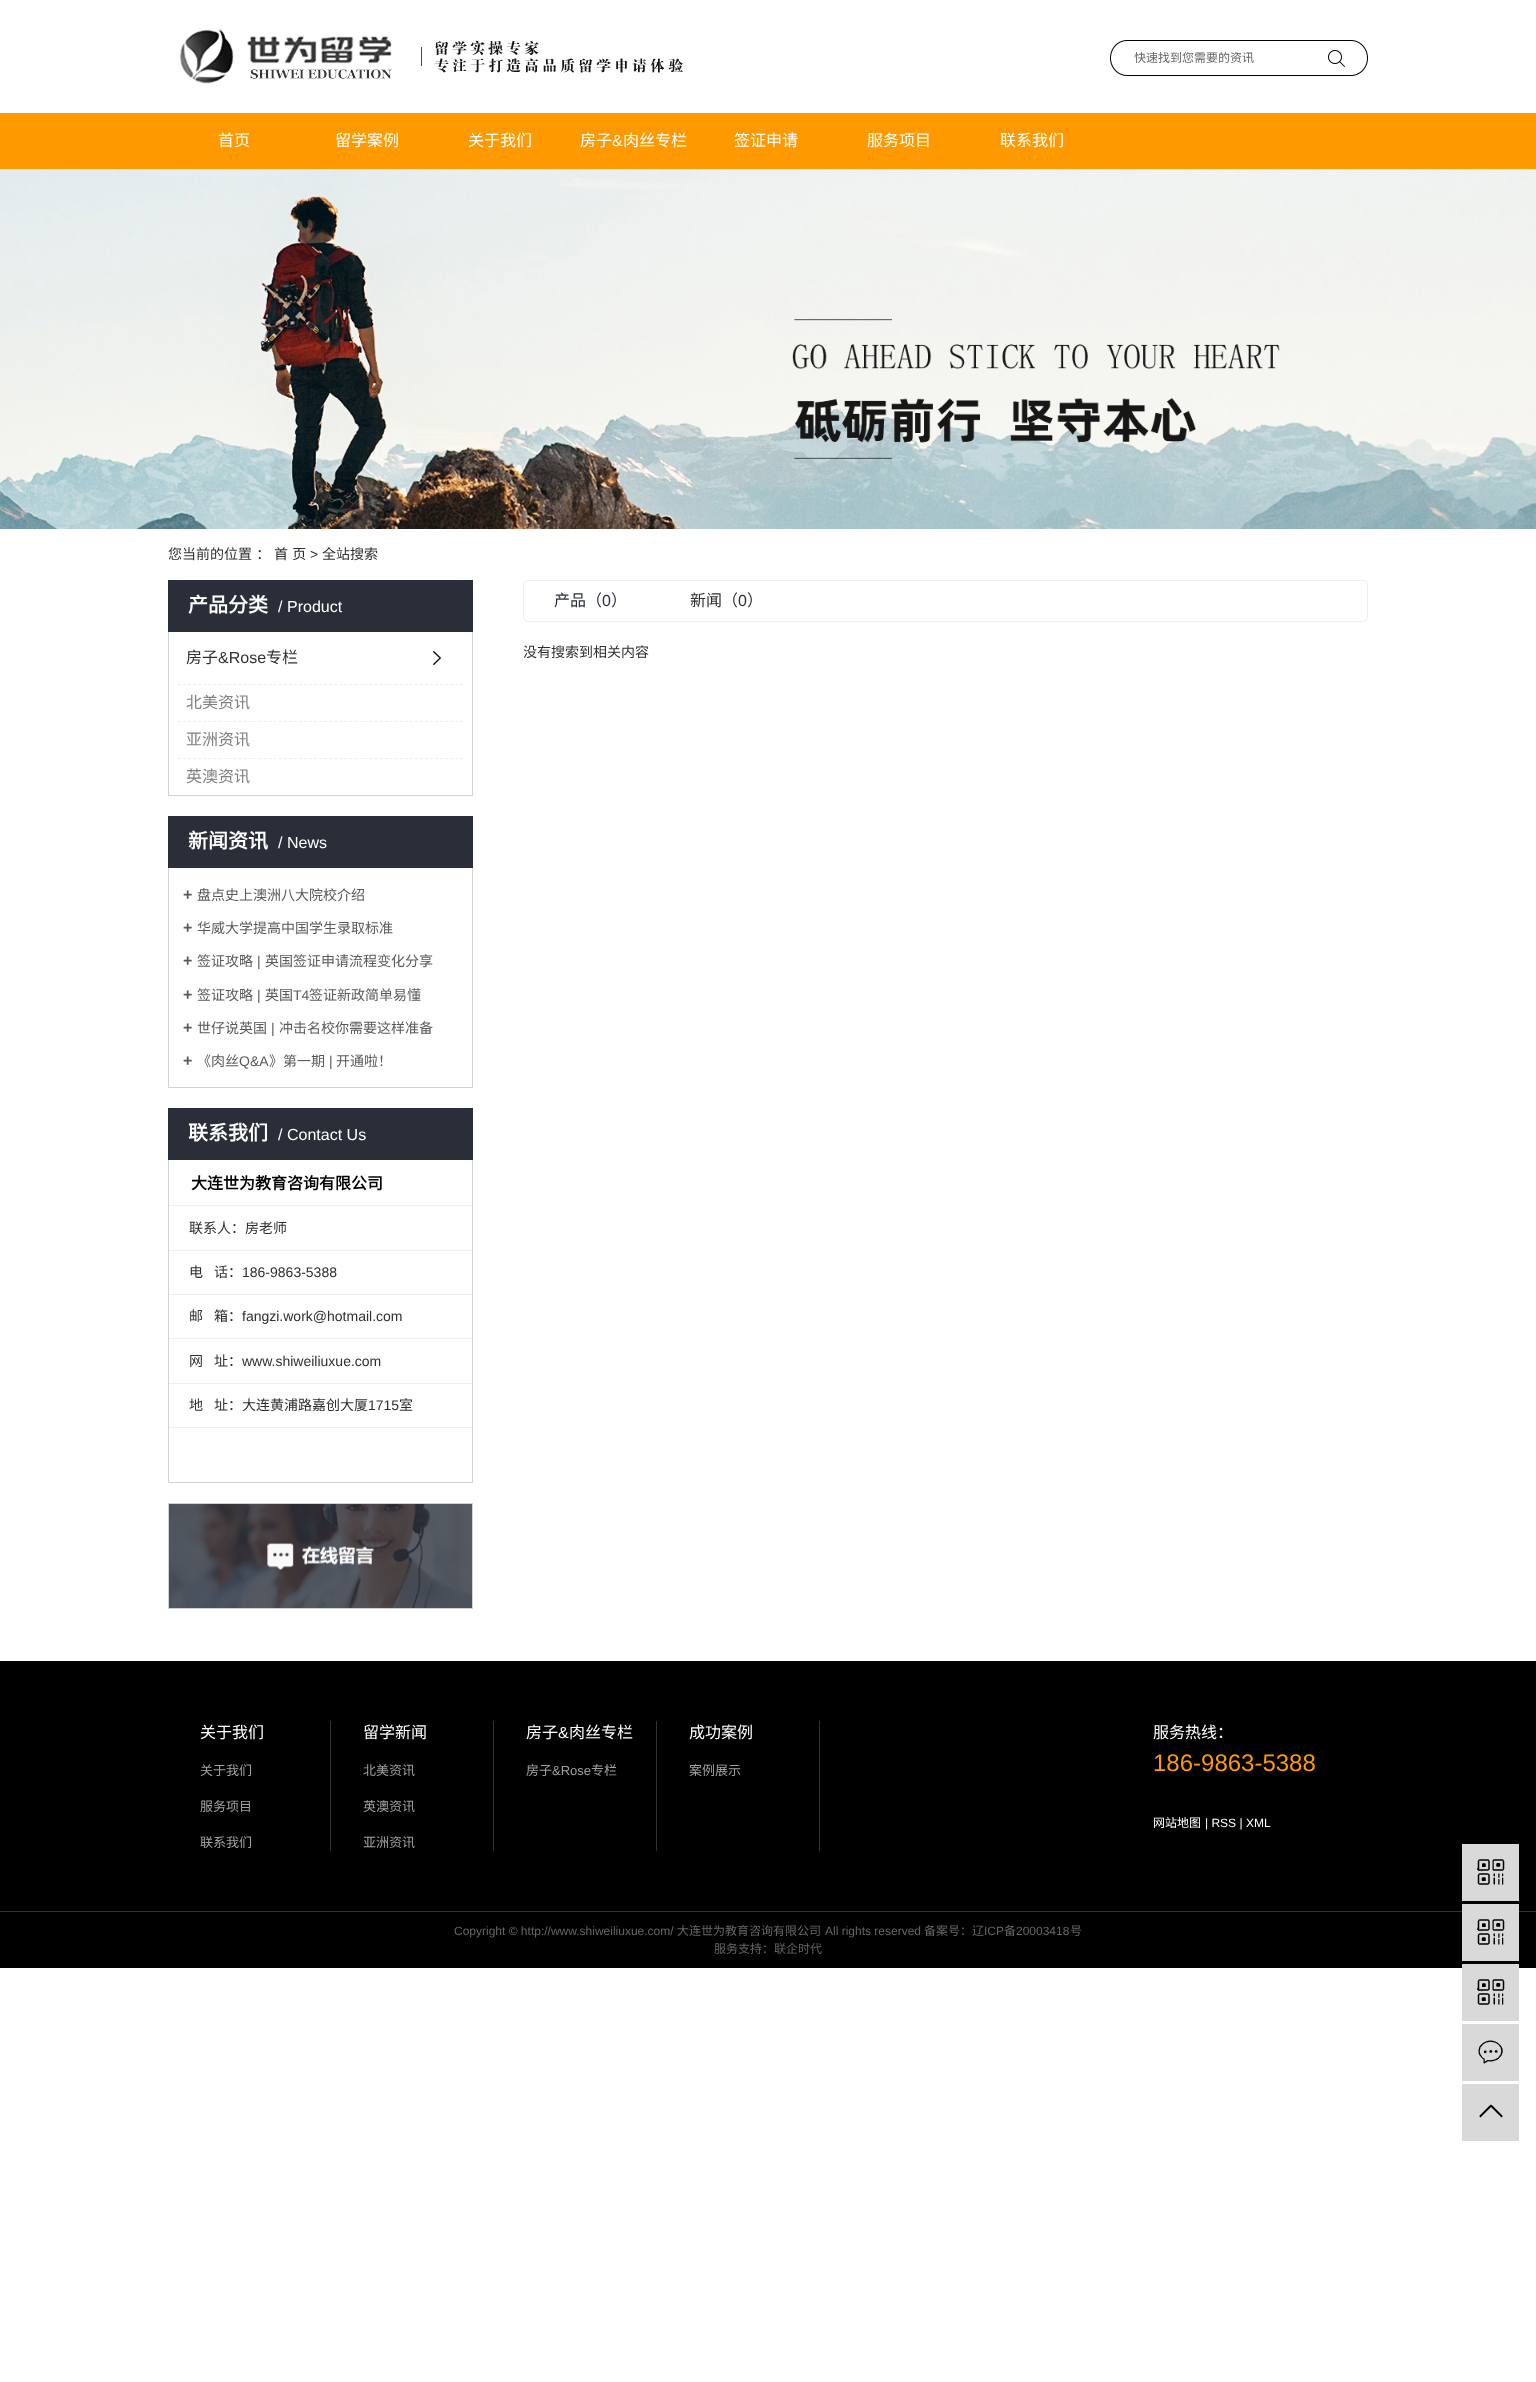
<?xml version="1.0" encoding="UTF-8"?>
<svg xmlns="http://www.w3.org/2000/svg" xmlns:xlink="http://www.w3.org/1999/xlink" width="1536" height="2382">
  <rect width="100%" height="100%" fill="#ffffff" />
  <image x="179" y="29" width="213" height="55" xlink:href="image1.png" />
  <image x="421" y="40" width="262" height="33" xlink:href="image2.png" />
  <image x="1110" y="40" width="258" height="36" xlink:href="image3.png" />
  <rect y="113" width="1536" height="56" fill="#ff9900" />
  <image x="0" y="169" width="1536" height="360" xlink:href="image4.png" />
  <rect x="168" y="580" width="305" height="52" fill="#292e39" />
  <rect x="472" y="632" width="1" height="164" fill="#d2d2d2" />
  <rect x="168" y="795" width="305" height="1" fill="#d2d2d2" />
  <rect x="168" y="632" width="1" height="164" fill="#d2d2d2" />
  <image x="433" y="651" width="8" height="14" xlink:href="image5.png" />
  <path d="M 178 684.5 h 285" fill="none" stroke="#eeeeee" stroke-dasharray="3 2.04" />
  <path d="M 178 721.5 h 285" fill="none" stroke="#eeeeee" stroke-dasharray="3 2.04" />
  <path d="M 178 758.5 h 285" fill="none" stroke="#eeeeee" stroke-dasharray="3 2.04" />
  <rect x="168" y="816" width="305" height="52" fill="#292e39" />
  <rect x="472" y="868" width="1" height="220" fill="#d2d2d2" />
  <rect x="168" y="1087" width="305" height="1" fill="#d2d2d2" />
  <rect x="168" y="868" width="1" height="220" fill="#d2d2d2" />
  <rect x="168" y="1108" width="305" height="52" fill="#292e39" />
  <rect x="472" y="1160" width="1" height="323" fill="#d2d2d2" />
  <rect x="168" y="1482" width="305" height="1" fill="#d2d2d2" />
  <rect x="168" y="1160" width="1" height="323" fill="#d2d2d2" />
  <rect x="169" y="1205" width="303" height="1" fill="#eeeeee" />
  <rect x="169" y="1250" width="303" height="1" fill="#eeeeee" />
  <rect x="169" y="1294" width="303" height="1" fill="#eeeeee" />
  <rect x="169" y="1338" width="303" height="1" fill="#eeeeee" />
  <rect x="169" y="1383" width="303" height="1" fill="#eeeeee" />
  <rect x="169" y="1427" width="303" height="1" fill="#eeeeee" />
  <rect x="168.5" y="1503.5" width="304" height="105" fill="none" stroke="#d2d2d2" />
  <image x="169" y="1504" width="303" height="104" xlink:href="image6.png" />
  <rect x="523.5" y="580.5" width="844" height="41" rx="4.5" fill="none" stroke="#efefef" />
  <rect y="1661" width="1536" height="250" fill="#000000" />
  <rect x="330" y="1721" width="1" height="130" fill="#333333" />
  <rect x="493" y="1721" width="1" height="130" fill="#333333" />
  <rect x="656" y="1721" width="1" height="130" fill="#333333" />
  <rect x="819" y="1721" width="1" height="130" fill="#333333" />
  <rect y="1912" width="1536" height="56" fill="#000000" />
  <rect y="1911" width="1536" height="1" fill="#333333" />
  <rect x="1462" y="1844" width="57" height="57" fill="#d9d9d9" />
  <image x="1477" y="1859" width="28" height="26" xlink:href="image7.png" />
  <rect x="1462" y="1904" width="57" height="57" fill="#d9d9d9" />
  <image x="1477" y="1919" width="28" height="26" xlink:href="image7.png" />
  <rect x="1462" y="1964" width="57" height="57" fill="#d9d9d9" />
  <image x="1477" y="1979" width="28" height="26" xlink:href="image7.png" />
  <rect x="1462" y="2024" width="57" height="57" fill="#d9d9d9" />
  <image x="1478" y="2040" width="25" height="24" xlink:href="image8.png" />
  <rect x="1462" y="2084" width="57" height="57" fill="#d9d9d9" />
  <image x="1479" y="2104" width="24" height="14" xlink:href="image9.png" />
  <text x="1134" y="62" style="font-family: Noto Sans CJK SC; font-size: 12px; fill: #666666">快速找到您需要的资讯</text>
  <text x="218" y="146" style="font-family: Noto Sans CJK SC; font-size: 16px; fill: #ffffff">首页</text>
  <text x="335" y="146" style="font-family: Noto Sans CJK SC; font-size: 16px; fill: #ffffff">留学案例</text>
  <text x="468" y="146" style="font-family: Noto Sans CJK SC; font-size: 16px; fill: #ffffff">关于我们</text>
  <text x="580" y="146" style="font-family: Noto Sans CJK SC; font-size: 16px; fill: #ffffff">房子</text>
  <text x="612" y="146" style="font-family: Liberation Sans; font-size: 16px; fill: #ffffff">&amp;</text>
  <text x="623" y="146" style="font-family: Noto Sans CJK SC; font-size: 16px; fill: #ffffff">肉丝专栏</text>
  <text x="734" y="146" style="font-family: Noto Sans CJK SC; font-size: 16px; fill: #ffffff">签证申请</text>
  <text x="867" y="146" style="font-family: Noto Sans CJK SC; font-size: 16px; fill: #ffffff">服务项目</text>
  <text x="1000" y="146" style="font-family: Noto Sans CJK SC; font-size: 16px; fill: #ffffff">联系我们</text>
  <text x="168" y="559" word-spacing="1" style="font-family: Noto Sans CJK SC; font-size: 14px; fill: #2f2f2f">您当前的位置 ：</text>
  <text x="274" y="559" word-spacing="1" style="font-family: Noto Sans CJK SC; font-size: 14px; fill: #2f2f2f">首 页</text>
  <text x="310" y="559" style="font-family: Liberation Sans; font-size: 14px; fill: #2f2f2f">&gt;</text>
  <text x="322" y="559" style="font-family: Noto Sans CJK SC; font-size: 14px; fill: #2f2f2f">全站搜索</text>
  <text x="188" y="612" style="font-family: Noto Sans CJK SC; font-size: 20px; font-weight: bold; fill: #ffffff">产品分类</text>
  <text x="278" y="612" style="font-family: Liberation Sans; font-size: 16px; fill: #ffffff">/</text>
  <text x="287" y="612" style="font-family: Liberation Sans; font-size: 16px; fill: #ffffff">Product</text>
  <text x="186" y="663" style="font-family: Noto Sans CJK SC; font-size: 16px; fill: #2f2f2f">房子</text>
  <text x="218" y="663" style="font-family: Liberation Sans; font-size: 16px; fill: #2f2f2f">&amp;Rose</text>
  <text x="266" y="663" style="font-family: Noto Sans CJK SC; font-size: 16px; fill: #2f2f2f">专栏</text>
  <text x="186" y="708" style="font-family: Noto Sans CJK SC; font-size: 16px; fill: #818181">北美资讯</text>
  <text x="186" y="745" style="font-family: Noto Sans CJK SC; font-size: 16px; fill: #818181">亚洲资讯</text>
  <text x="186" y="782" style="font-family: Noto Sans CJK SC; font-size: 16px; fill: #818181">英澳资讯</text>
  <text x="188" y="848" style="font-family: Noto Sans CJK SC; font-size: 20px; font-weight: bold; fill: #ffffff">新闻资讯</text>
  <text x="278" y="848" style="font-family: Liberation Sans; font-size: 16px; fill: #ffffff">/</text>
  <text x="287" y="848" style="font-family: Liberation Sans; font-size: 16px; fill: #ffffff">News</text>
  <text x="183" y="900" style="font-family: Liberation Sans; font-size: 16px; font-weight: bold; fill: #5a5a5a">+</text>
  <text x="197" y="900" style="font-family: Noto Sans CJK SC; font-size: 14px; fill: #5a5a5a">盘点史上澳洲八大院校介绍</text>
  <text x="183" y="933" style="font-family: Liberation Sans; font-size: 16px; font-weight: bold; fill: #5a5a5a">+</text>
  <text x="197" y="933" style="font-family: Noto Sans CJK SC; font-size: 14px; fill: #5a5a5a">华威大学提高中国学生录取标准</text>
  <text x="183" y="966" style="font-family: Liberation Sans; font-size: 16px; font-weight: bold; fill: #5a5a5a">+</text>
  <text x="197" y="966" style="font-family: Noto Sans CJK SC; font-size: 14px; fill: #5a5a5a">签证攻略</text>
  <text x="257" y="966" style="font-family: Liberation Sans; font-size: 14px; fill: #5a5a5a">|</text>
  <text x="265" y="966" style="font-family: Noto Sans CJK SC; font-size: 14px; fill: #5a5a5a">英国签证申请流程变化分享</text>
  <text x="183" y="1000" style="font-family: Liberation Sans; font-size: 16px; font-weight: bold; fill: #5a5a5a">+</text>
  <text x="197" y="1000" style="font-family: Noto Sans CJK SC; font-size: 14px; fill: #5a5a5a">签证攻略</text>
  <text x="257" y="1000" style="font-family: Liberation Sans; font-size: 14px; fill: #5a5a5a">|</text>
  <text x="265" y="1000" style="font-family: Noto Sans CJK SC; font-size: 14px; fill: #5a5a5a">英国</text>
  <text x="293" y="1000" style="font-family: Liberation Sans; font-size: 14px; fill: #5a5a5a">T4</text>
  <text x="309" y="1000" style="font-family: Noto Sans CJK SC; font-size: 14px; fill: #5a5a5a">签证新政简单易懂</text>
  <text x="183" y="1033" style="font-family: Liberation Sans; font-size: 16px; font-weight: bold; fill: #5a5a5a">+</text>
  <text x="197" y="1033" style="font-family: Noto Sans CJK SC; font-size: 14px; fill: #5a5a5a">世仔说英国</text>
  <text x="271" y="1033" style="font-family: Liberation Sans; font-size: 14px; fill: #5a5a5a">|</text>
  <text x="279" y="1033" style="font-family: Noto Sans CJK SC; font-size: 14px; fill: #5a5a5a">冲击名校你需要这样准备</text>
  <text x="183" y="1066" style="font-family: Liberation Sans; font-size: 16px; font-weight: bold; fill: #5a5a5a">+</text>
  <text x="197" y="1066" style="font-family: Noto Sans CJK SC; font-size: 14px; fill: #5a5a5a">《肉丝</text>
  <text x="239" y="1066" style="font-family: Liberation Sans; font-size: 14px; fill: #5a5a5a">Q&amp;A</text>
  <text x="269" y="1066" style="font-family: Noto Sans CJK SC; font-size: 14px; fill: #5a5a5a">》第一期</text>
  <text x="329" y="1066" style="font-family: Liberation Sans; font-size: 14px; fill: #5a5a5a">|</text>
  <text x="336" y="1066" style="font-family: Noto Sans CJK SC; font-size: 14px; fill: #5a5a5a">开通啦！</text>
  <text x="188" y="1140" style="font-family: Noto Sans CJK SC; font-size: 20px; font-weight: bold; fill: #ffffff">联系我们</text>
  <text x="278" y="1140" style="font-family: Liberation Sans; font-size: 16px; fill: #ffffff">/</text>
  <text x="287" y="1140" style="font-family: Liberation Sans; font-size: 16px; fill: #ffffff">Contact Us</text>
  <text x="191" y="1189" style="font-family: Noto Sans CJK SC; font-size: 16px; font-weight: bold; fill: #000000">大连世为教育咨询有限公司</text>
  <text x="189" y="1233" style="font-family: Noto Sans CJK SC; font-size: 14px; fill: #2f2f2f">联系人：房老师</text>
  <text x="189" y="1277" style="font-family: Noto Sans CJK SC; font-size: 14px; fill: #2f2f2f">电</text>
  <text x="214" y="1277" style="font-family: Noto Sans CJK SC; font-size: 14px; fill: #2f2f2f">话：</text>
  <text x="242" y="1277" style="font-family: Liberation Sans; font-size: 14px; fill: #2f2f2f">186-9863-5388</text>
  <text x="189" y="1321" style="font-family: Noto Sans CJK SC; font-size: 14px; fill: #2f2f2f">邮</text>
  <text x="214" y="1321" style="font-family: Noto Sans CJK SC; font-size: 14px; fill: #2f2f2f">箱：</text>
  <text x="242" y="1321" style="font-family: Liberation Sans; font-size: 14px; fill: #2f2f2f">fangzi.work@hotmail.com</text>
  <text x="189" y="1366" style="font-family: Noto Sans CJK SC; font-size: 14px; fill: #2f2f2f">网</text>
  <text x="214" y="1366" style="font-family: Noto Sans CJK SC; font-size: 14px; fill: #2f2f2f">址：</text>
  <text x="242" y="1366" style="font-family: Liberation Sans; font-size: 14px; fill: #2f2f2f">www.shiweiliuxue.com</text>
  <text x="189" y="1410" style="font-family: Noto Sans CJK SC; font-size: 14px; fill: #2f2f2f">地</text>
  <text x="214" y="1410" style="font-family: Noto Sans CJK SC; font-size: 14px; fill: #2f2f2f">址：大连黄浦路嘉创大厦</text>
  <text x="368" y="1410" style="font-family: Liberation Sans; font-size: 14px; fill: #2f2f2f">1715</text>
  <text x="399" y="1410" style="font-family: Noto Sans CJK SC; font-size: 14px; fill: #2f2f2f">室</text>
  <text x="554" y="606" style="font-family: Noto Sans CJK SC; font-size: 16px; fill: #292e39">产品（</text>
  <text x="602" y="606" style="font-family: Liberation Sans; font-size: 16px; fill: #292e39">0</text>
  <text x="611" y="606" style="font-family: Noto Sans CJK SC; font-size: 16px; fill: #292e39">）</text>
  <text x="690" y="606" style="font-family: Noto Sans CJK SC; font-size: 16px; fill: #2f2f2f">新闻（</text>
  <text x="738" y="606" style="font-family: Liberation Sans; font-size: 16px; fill: #2f2f2f">0</text>
  <text x="747" y="606" style="font-family: Noto Sans CJK SC; font-size: 16px; fill: #2f2f2f">）</text>
  <text x="523" y="657" style="font-family: Noto Sans CJK SC; font-size: 14px; fill: #2f2f2f">没有搜索到相关内容</text>
  <text x="200" y="1738" style="font-family: Noto Sans CJK SC; font-size: 16px; fill: #ffffff">关于我们</text>
  <text x="200" y="1775" style="font-family: Noto Sans CJK SC; font-size: 13px; fill: #a1a1a1">关于我们</text>
  <text x="200" y="1811" style="font-family: Noto Sans CJK SC; font-size: 13px; fill: #a1a1a1">服务项目</text>
  <text x="200" y="1847" style="font-family: Noto Sans CJK SC; font-size: 13px; fill: #a1a1a1">联系我们</text>
  <text x="363" y="1738" style="font-family: Noto Sans CJK SC; font-size: 16px; fill: #ffffff">留学新闻</text>
  <text x="363" y="1775" style="font-family: Noto Sans CJK SC; font-size: 13px; fill: #a1a1a1">北美资讯</text>
  <text x="363" y="1811" style="font-family: Noto Sans CJK SC; font-size: 13px; fill: #a1a1a1">英澳资讯</text>
  <text x="363" y="1847" style="font-family: Noto Sans CJK SC; font-size: 13px; fill: #a1a1a1">亚洲资讯</text>
  <text x="526" y="1738" style="font-family: Noto Sans CJK SC; font-size: 16px; fill: #ffffff">房子</text>
  <text x="558" y="1738" style="font-family: Liberation Sans; font-size: 16px; fill: #ffffff">&amp;</text>
  <text x="569" y="1738" style="font-family: Noto Sans CJK SC; font-size: 16px; fill: #ffffff">肉丝专栏</text>
  <text x="526" y="1775" style="font-family: Noto Sans CJK SC; font-size: 13px; fill: #a1a1a1">房子</text>
  <text x="552" y="1775" style="font-family: Liberation Sans; font-size: 13px; fill: #a1a1a1">&amp;Rose</text>
  <text x="591" y="1775" style="font-family: Noto Sans CJK SC; font-size: 13px; fill: #a1a1a1">专栏</text>
  <text x="689" y="1738" style="font-family: Noto Sans CJK SC; font-size: 16px; fill: #ffffff">成功案例</text>
  <text x="689" y="1775" style="font-family: Noto Sans CJK SC; font-size: 13px; fill: #a1a1a1">案例展示</text>
  <text x="1153" y="1738" style="font-family: Noto Sans CJK SC; font-size: 16px; fill: #ffffff">服务热线：</text>
  <text x="1153" y="1771" style="font-family: Liberation Sans; font-size: 24px; fill: #ff9900">186-9863-5388</text>
  <text x="1153" y="1827" style="font-family: Noto Sans CJK SC; font-size: 12px; fill: #ffffff">网站地图</text>
  <text x="1205" y="1827" style="font-family: Liberation Sans; font-size: 12px; fill: #ffffff">| RSS | XML</text>
  <text x="454" y="1935" style="font-family: Liberation Sans; font-size: 12px; fill: #666666">Copyright © http://www.shiweiliuxue.com/</text>
  <text x="677" y="1935" style="font-family: Noto Sans CJK SC; font-size: 12px; fill: #666666">大连世为教育咨询有限公司</text>
  <text x="825" y="1935" style="font-family: Liberation Sans; font-size: 12px; fill: #666666">All rights reserved</text>
  <text x="924" y="1935" style="font-family: Noto Sans CJK SC; font-size: 12px; fill: #666666">备案号：辽</text>
  <text x="984" y="1935" style="font-family: Liberation Sans; font-size: 12px; fill: #666666">ICP</text>
  <text x="1004" y="1935" style="font-family: Noto Sans CJK SC; font-size: 12px; fill: #666666">备</text>
  <text x="1016" y="1935" style="font-family: Liberation Sans; font-size: 12px; fill: #666666">20003418</text>
  <text x="1070" y="1935" style="font-family: Noto Sans CJK SC; font-size: 12px; fill: #666666">号</text>
  <text x="714" y="1953" style="font-family: Noto Sans CJK SC; font-size: 12px; fill: #666666">服务支持：联企时代</text>
</svg>
